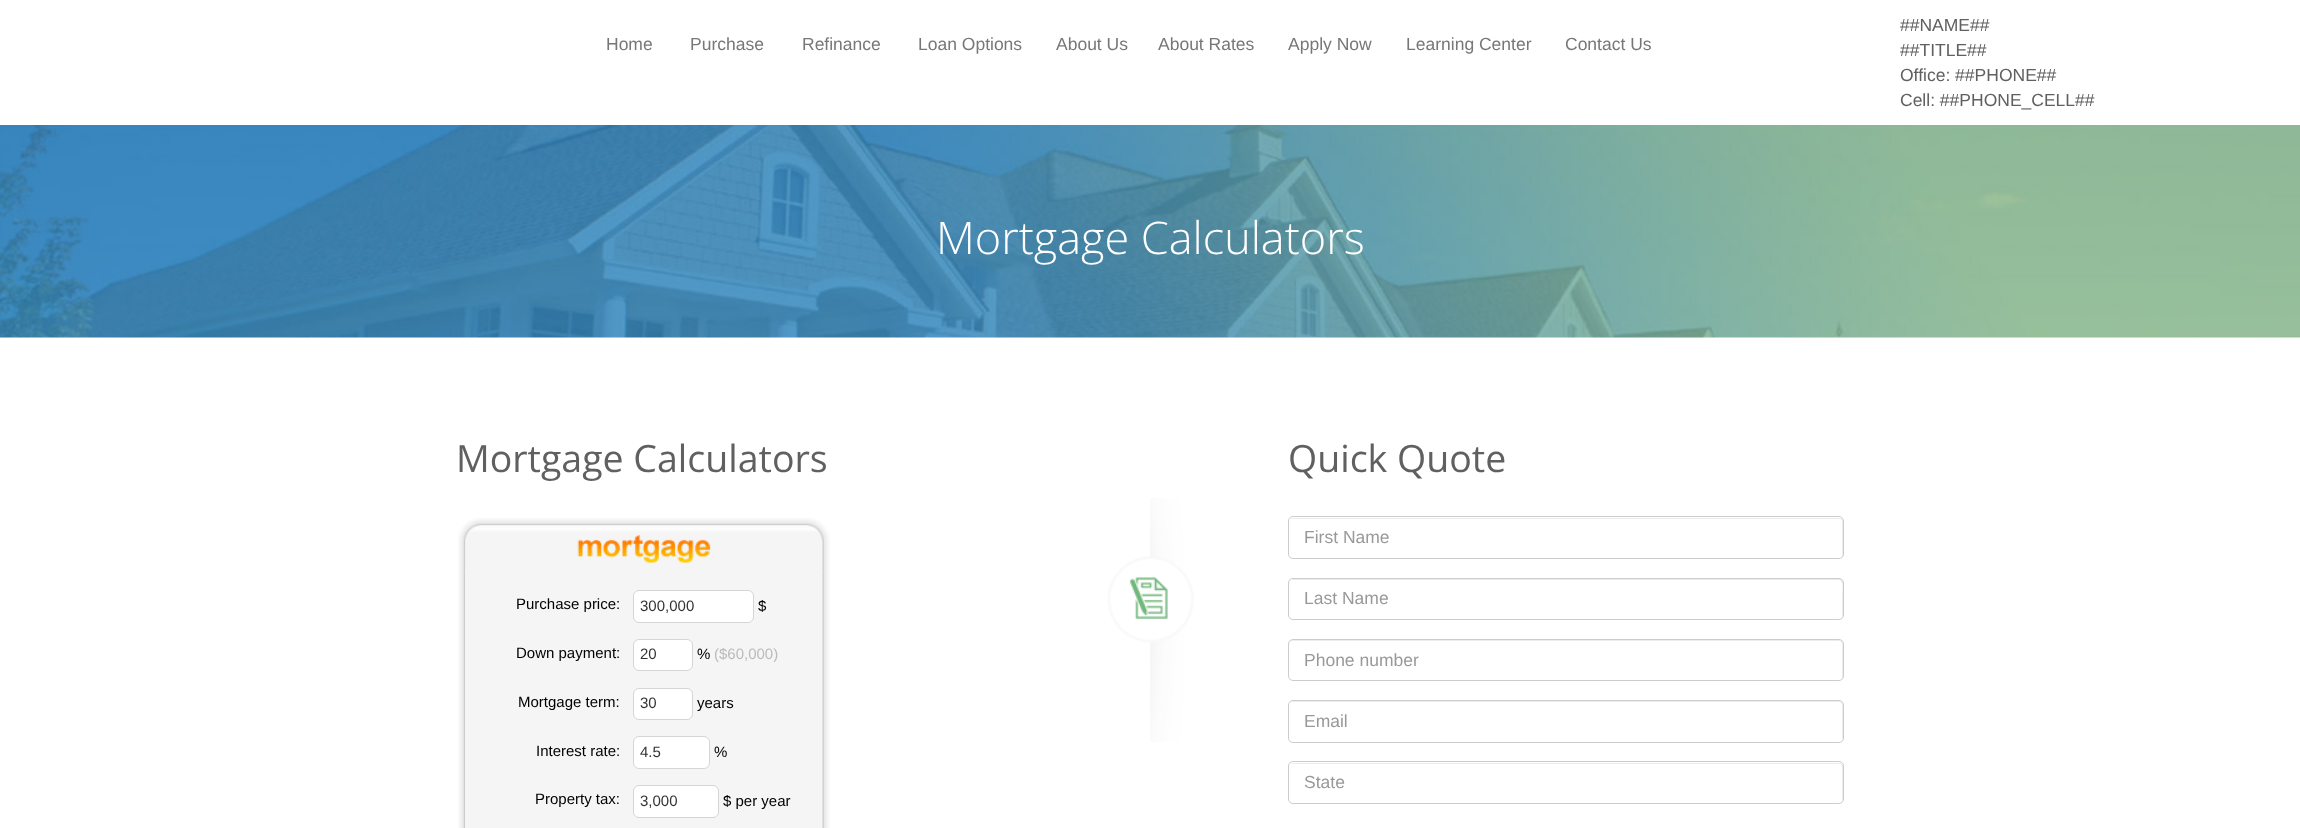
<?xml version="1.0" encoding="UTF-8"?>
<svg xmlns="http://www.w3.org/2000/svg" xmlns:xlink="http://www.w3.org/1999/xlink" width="2300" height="828">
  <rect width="100%" height="100%" fill="#ffffff" />
  <image x="0" y="125" width="2300" height="213" xlink:href="image1.png" />
  <image x="458" y="571" width="7" height="257" xlink:href="image3.png" />
  <rect x="465" y="571" width="358" height="257" fill="#f5f5f5" />
  <image x="822" y="571" width="8" height="257" xlink:href="image4.png" />
  <image x="458" y="518" width="372" height="54" xlink:href="image2.png" />
  <rect x="633.5" y="590.5" width="120" height="32" rx="5.5" fill="#ffffff" stroke="#d5d5d5" />
  <rect x="633.5" y="639.5" width="59" height="31" rx="5.5" fill="#ffffff" stroke="#d5d5d5" />
  <rect x="633.5" y="688.5" width="59" height="31" rx="5.5" fill="#ffffff" stroke="#d5d5d5" />
  <rect x="633.5" y="736.5" width="76" height="32" rx="5.5" fill="#ffffff" stroke="#d5d5d5" />
  <rect x="633.5" y="785.5" width="85" height="32" rx="5.5" fill="#ffffff" stroke="#d5d5d5" />
  <image x="1108" y="498" width="86" height="244" xlink:href="image5.png" />
  <path d="M 1292 519 h 547 c 2 0 3 1 3 3 v 35 l 1 -2 v -35 c -1 -1 -2 -2 -3 -2 h -548 l -2 2 z" fill="#ececec" />
  <rect x="1288.5" y="516.5" width="555" height="42" rx="4.5" fill="none" stroke="#cccccc" />
  <path d="M 1292 580 h 547 c 5 0 3 13 3 15 v 23 l 1 -2 v -35 c -1 -1 -2 -2 -3 -2 h -547 l -2 1 c -2 1 -2 2 -2 4 c 0 -2 1 -4 3 -4 z" fill="#ececec" />
  <rect x="1288.5" y="578.5" width="555" height="41" rx="4.5" fill="none" stroke="#cccccc" />
  <path d="M 1292 641 h 547 c 2 0 3 2 3 4 v 34 c 1 -1 1 -2 1 -3 v -32 c 0 -2 -2 -4 -4 -4 h -546 c -2 0 -4 2 -4 4 v 1 c 0 -2 1 -4 3 -4 z" fill="#ececec" />
  <rect x="1288.5" y="639.5" width="555" height="41" rx="4.5" fill="none" stroke="#cccccc" />
  <path d="M 1292 702 h 547 c 2 0 3 2 3 4 v 34 c 1 -1 1 -2 1 -3 v -32 c 0 -2 -2 -4 -4 -4 h -546 c -2 0 -4 2 -4 4 v 1 c 0 -2 1 -4 3 -4 z" fill="#ececec" />
  <rect x="1288.5" y="700.5" width="555" height="42" rx="4.5" fill="none" stroke="#cccccc" />
  <path d="M 1292 764 h 547 c 2 0 3 1 3 4 v 34 l 1 -2 v -35 c -1 -1 -2 -2 -3 -2 h -547 l -2 1 c -2 1 -2 2 -2 4 c 0 -3 1 -4 3 -4 z" fill="#ececec" />
  <rect x="1288.5" y="761.5" width="555" height="42" rx="4.5" fill="none" stroke="#cccccc" />
  <text x="606" y="50" style="font-family: Liberation Sans; font-size: 17.5px; fill: #777777">Home</text>
  <text x="690" y="50" style="font-family: Liberation Sans; font-size: 17.5px; fill: #777777">Purchase</text>
  <text x="802" y="50" style="font-family: Liberation Sans; font-size: 17.5px; fill: #777777">Refinance</text>
  <text x="918" y="50" style="font-family: Liberation Sans; font-size: 17.5px; fill: #777777">Loan Options</text>
  <text x="1056" y="50" style="font-family: Liberation Sans; font-size: 17.5px; fill: #777777">About Us</text>
  <text x="1158" y="50" style="font-family: Liberation Sans; font-size: 17.5px; fill: #777777">About Rates</text>
  <text x="1288" y="50" style="font-family: Liberation Sans; font-size: 17.5px; fill: #777777">Apply Now</text>
  <text x="1406" y="50" style="font-family: Liberation Sans; font-size: 17.5px; fill: #777777">Learning Center</text>
  <text x="1565" y="50" style="font-family: Liberation Sans; font-size: 17.5px; fill: #777777">Contact Us</text>
  <text x="1900" y="31" style="font-family: Liberation Sans; font-size: 17.5px; fill: #606060">##NAME##</text>
  <text x="1900" y="56" style="font-family: Liberation Sans; font-size: 17.5px; fill: #606060">##TITLE##</text>
  <text x="1900" y="81" style="font-family: Liberation Sans; font-size: 17.5px; fill: #606060">Office: ##PHONE##</text>
  <text x="1900" y="106" style="font-family: Liberation Sans; font-size: 17.5px; fill: #606060">Cell: ##PHONE_CELL##</text>
  <text x="936" y="254" style="font-family: Open Sans; font-size: 45px; font-weight: 300; fill: #ffffff">Mortgage Calculators</text>
  <text x="456" y="472" style="font-family: Open Sans; font-size: 37.5px; fill: #606060">Mortgage Calculators</text>
  <text x="516" y="609" style="font-family: Liberation Sans; font-size: 15px; fill: #000000">Purchase price:</text>
  <text x="640" y="611" style="font-family: Liberation Sans; font-size: 15px; fill: #333333">300,000</text>
  <text x="758" y="611" style="font-family: Liberation Sans; font-size: 15px; fill: #000000">$</text>
  <text x="516" y="658" style="font-family: Liberation Sans; font-size: 15px; fill: #000000">Down payment:</text>
  <text x="640" y="659" style="font-family: Liberation Sans; font-size: 15px; fill: #333333">20</text>
  <text x="697" y="659" style="font-family: Liberation Sans; font-size: 15px; fill: #000000">%</text>
  <text x="714" y="659" style="font-family: Liberation Sans; font-size: 15px; fill: #bbbbbb">($60,000)</text>
  <text x="518" y="707" style="font-family: Liberation Sans; font-size: 15px; fill: #000000">Mortgage term:</text>
  <text x="640" y="708" style="font-family: Liberation Sans; font-size: 15px; fill: #333333">30</text>
  <text x="697" y="708" style="font-family: Liberation Sans; font-size: 15px; fill: #000000">years</text>
  <text x="536" y="756" style="font-family: Liberation Sans; font-size: 15px; fill: #000000">Interest rate:</text>
  <text x="640" y="757" style="font-family: Liberation Sans; font-size: 15px; fill: #333333">4.5</text>
  <text x="714" y="757" style="font-family: Liberation Sans; font-size: 15px; fill: #000000">%</text>
  <text x="535" y="804" style="font-family: Liberation Sans; font-size: 15px; fill: #000000">Property tax:</text>
  <text x="640" y="806" style="font-family: Liberation Sans; font-size: 15px; fill: #333333">3,000</text>
  <text x="723" y="806" style="font-family: Liberation Sans; font-size: 15px; fill: #000000">$ per year</text>
  <text x="1288" y="472" style="font-family: Open Sans; font-size: 37.5px; fill: #606060">Quick Quote</text>
  <text x="1304" y="543" style="font-family: Liberation Sans; font-size: 17.5px; fill: #999999">First Name</text>
  <text x="1304" y="604" style="font-family: Liberation Sans; font-size: 17.5px; fill: #999999">Last Name</text>
  <text x="1304" y="666" style="font-family: Liberation Sans; font-size: 17.5px; fill: #999999">Phone number</text>
  <text x="1304" y="727" style="font-family: Liberation Sans; font-size: 17.5px; fill: #999999">Email</text>
  <text x="1304" y="788" style="font-family: Liberation Sans; font-size: 17.5px; fill: #999999">State</text>
</svg>
